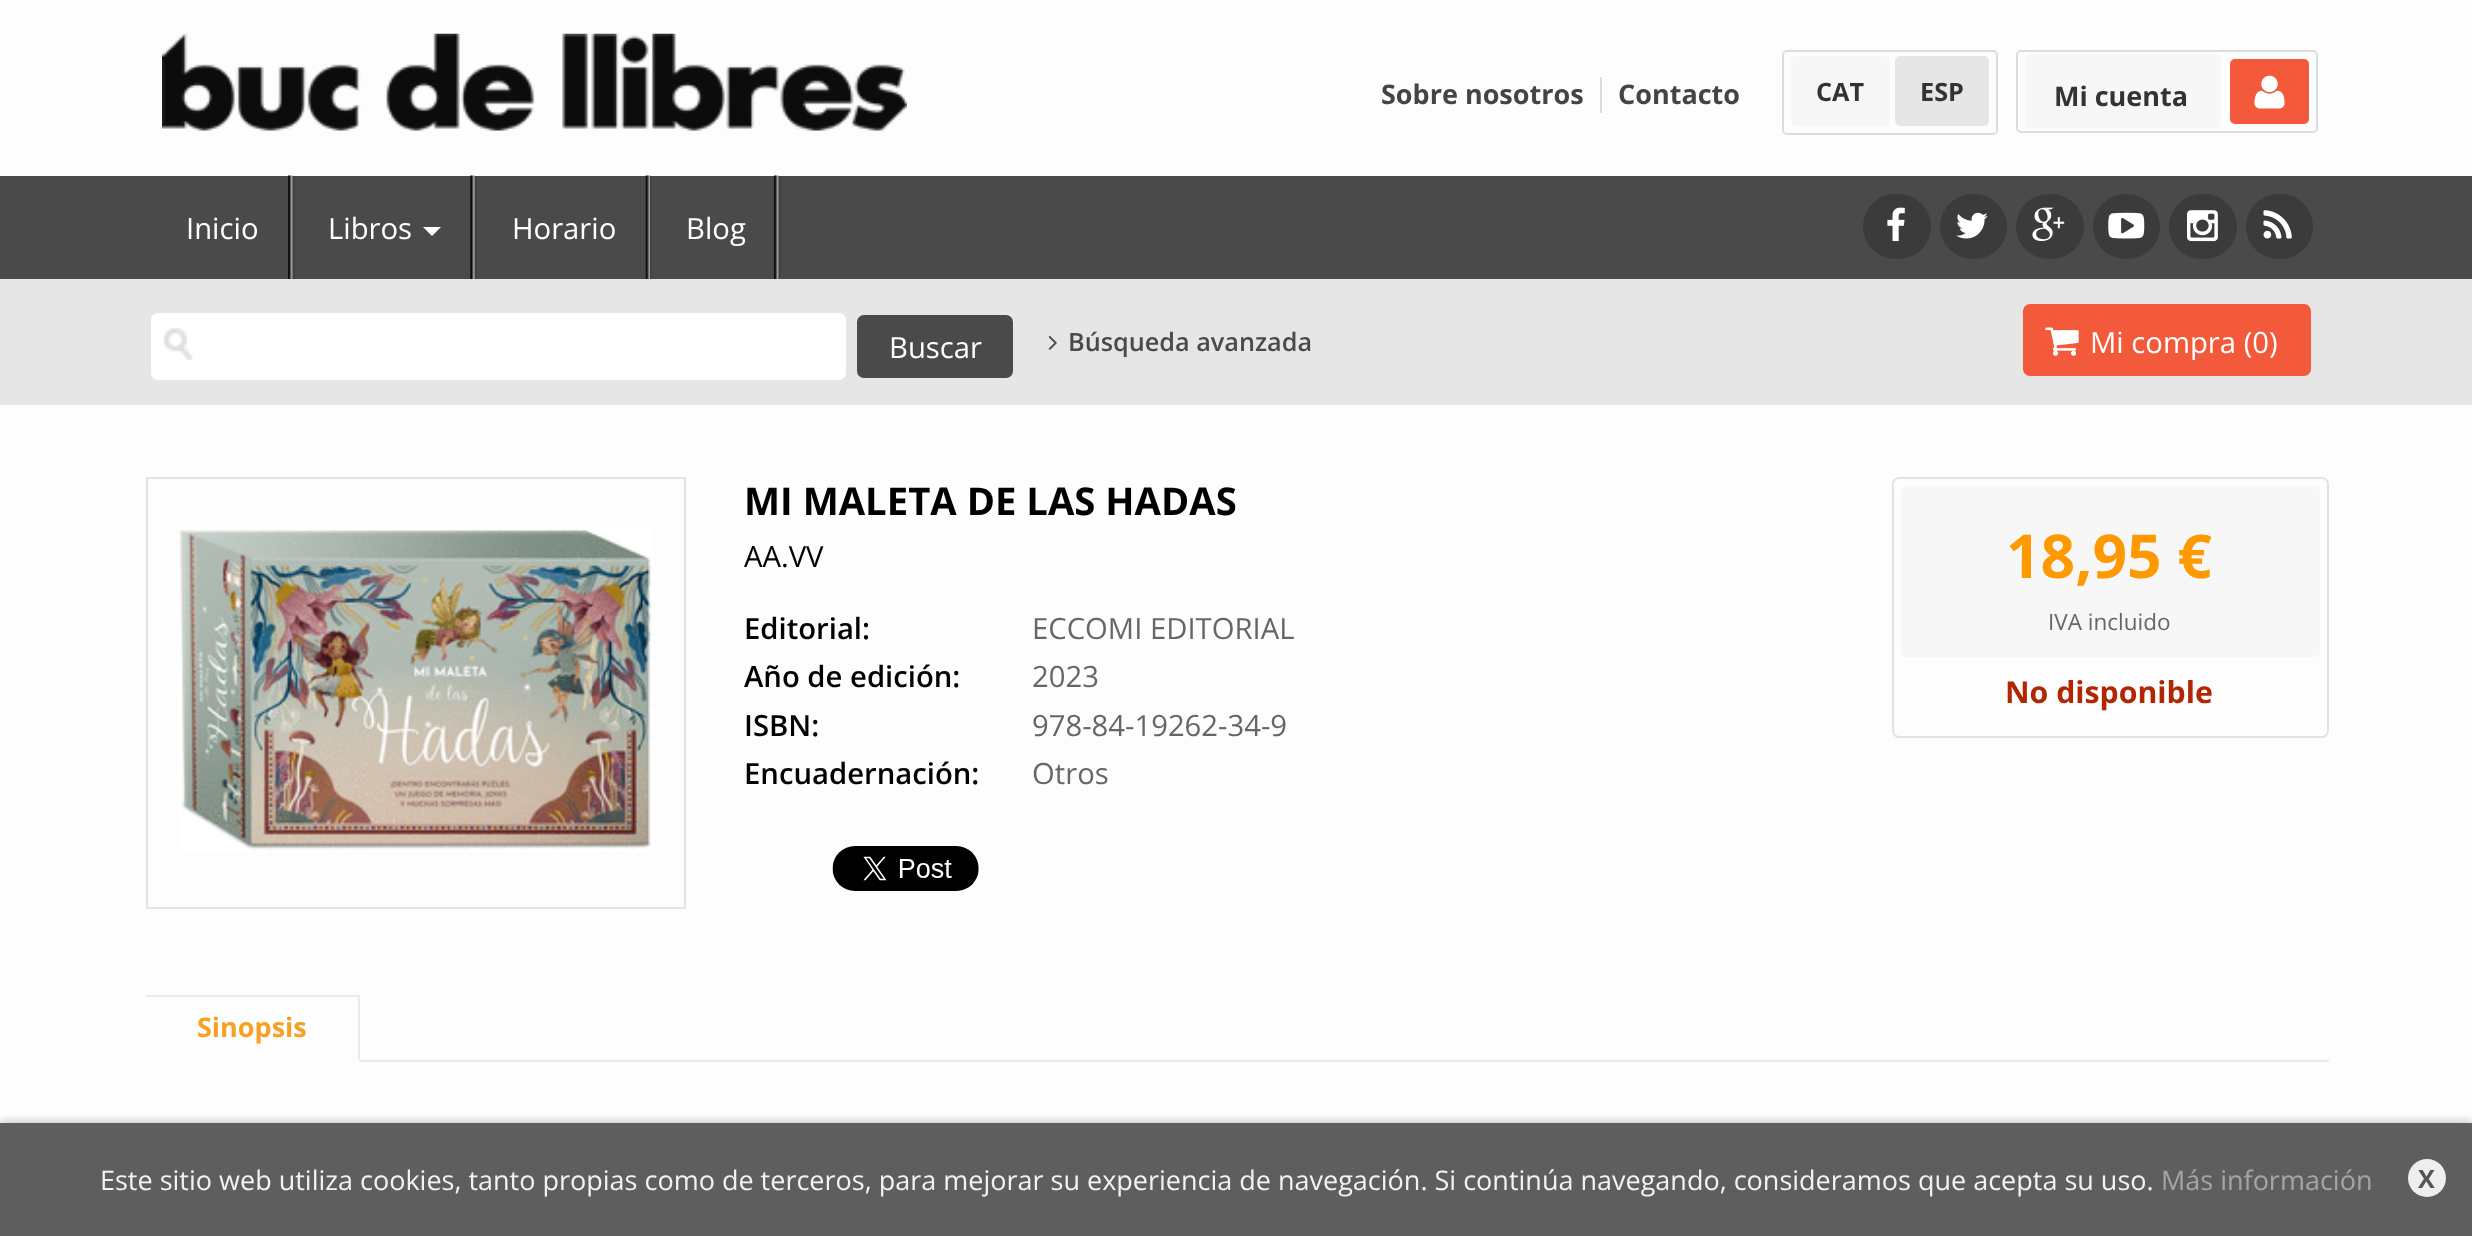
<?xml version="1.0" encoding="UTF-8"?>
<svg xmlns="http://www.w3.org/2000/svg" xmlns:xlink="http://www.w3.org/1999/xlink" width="2472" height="1236">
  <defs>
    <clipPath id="clip1"><rect x="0" y="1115" width="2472" height="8" /></clipPath>
  </defs>
  <rect width="100%" height="100%" fill="#fdfdfd" />
  <image x="162" y="33" width="745" height="98" xlink:href="image1.png" />
  <rect x="1600" y="77" width="2" height="36" fill="#dddddd" />
  <rect x="1783" y="51" width="214" height="83" rx="4" fill="none" stroke="#dddddd" stroke-width="2" />
  <rect x="1791" y="56" width="99" height="70" rx="5" fill="#f7f7f7" />
  <rect x="1895" y="56" width="94" height="70" rx="5" fill="#e6e6e6" />
  <rect x="2017" y="51" width="300" height="81" rx="4" fill="none" stroke="#dddddd" stroke-width="2" />
  <rect x="2025" y="54" width="196" height="74" rx="5" fill="#f7f7f7" />
  <rect x="2230" y="59" width="79" height="65" rx="5" fill="#f25a3b" />
  <image x="2254" y="75" width="31" height="34" xlink:href="image2.png" />
  <rect y="176" width="2472" height="103" fill="#4a4a4a" />
  <image x="288" y="175" width="5" height="104" xlink:href="image3.png" />
  <rect x="293" y="176" width="2" height="103" fill="#434343" />
  <image x="470" y="175" width="5" height="104" xlink:href="image4.png" />
  <rect x="475" y="176" width="2" height="103" fill="#434343" />
  <path d="M 423 227 h 18 l -9 9 z" fill="#ffffff" />
  <image x="645" y="175" width="6" height="104" xlink:href="image5.png" />
  <rect x="650" y="176" width="2" height="103" fill="#434343" />
  <image x="774" y="175" width="5" height="104" xlink:href="image3.png" />
  <rect x="779" y="176" width="2" height="103" fill="#434343" />
  <rect x="1863" y="194" width="68" height="65" rx="32.5" fill="#3b3b3b" />
  <image x="1887" y="207" width="18" height="35" xlink:href="image6.png" />
  <rect x="1940" y="194" width="67" height="65" rx="32.5" fill="#3b3b3b" />
  <image x="1956" y="212" width="32" height="27" xlink:href="image7.png" />
  <rect x="2016" y="194" width="68" height="65" rx="32.5" fill="#3b3b3b" />
  <image x="2032" y="207" width="33" height="35" xlink:href="image8.png" />
  <rect x="2093" y="194" width="67" height="65" rx="32.5" fill="#3b3b3b" />
  <image x="2108" y="212" width="37" height="27" xlink:href="image9.png" />
  <rect x="2169" y="194" width="68" height="65" rx="32.5" fill="#3b3b3b" />
  <image x="2187" y="210" width="31" height="32" xlink:href="image10.png" />
  <rect x="2246" y="194" width="67" height="65" rx="32.5" fill="#3b3b3b" />
  <image x="2263" y="210" width="29" height="29" xlink:href="image11.png" />
  <rect y="279" width="2472" height="126" fill="#e6e6e6" />
  <rect x="151" y="313" width="695" height="67" rx="7" fill="#ffffff" />
  <image x="164" y="328" width="29" height="32" xlink:href="image12.png" />
  <rect x="858" y="316" width="154" height="61" rx="6" fill="#4a4a4a" stroke="#4a4a4a" stroke-width="2" />
  <image x="1048" y="335" width="9" height="15" xlink:href="image13.png" />
  <rect x="2023" y="304" width="288" height="72" rx="7" fill="#f25a3b" />
  <image x="2045" y="327" width="34" height="29" xlink:href="image14.png" />
  <rect x="147" y="478" width="538" height="430" fill="none" stroke="#e3e3e3" stroke-width="2" />
  <image x="178" y="527" width="476" height="325" xlink:href="image15.png" />
  <image x="832" y="846" width="147" height="45" xlink:href="image16.png" />
  <rect x="1893" y="478" width="435" height="259" rx="6" fill="none" stroke="#e3e3e3" stroke-width="2" />
  <rect x="1901" y="486" width="419" height="171" rx="5" fill="#f7f7f7" />
  <rect x="360" y="1060" width="1969" height="2" fill="#eaeaea" />
  <rect x="146" y="995" width="214" height="2" fill="#eaeaea" />
  <rect x="358" y="995" width="2" height="67" fill="#eaeaea" />
  <rect x="358" y="1060" width="2" height="2" fill="#fdfdfd" />
  <g clip-path="url(#clip1)">
    <rect y="1123" width="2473" height="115" fill="#000000" fill-opacity="0.3" filter="blur(5.5px)" />
  </g>
  <rect y="1123" width="2472" height="113" fill="#555555" fill-opacity="0.95" />
  <circle cx="2427" cy="1178" r="19" fill="#eeeeee" />
  <text x="1381" y="104" style="font-family: Open Sans; font-size: 27px; font-weight: bold; fill: #444444">Sobre nosotros</text>
  <text x="1618" y="104" style="font-family: Open Sans; font-size: 27px; font-weight: bold; fill: #444444">Contacto</text>
  <text x="1816" y="101" style="font-family: Open Sans; font-size: 25.25px; font-weight: bold; fill: #333333">CAT</text>
  <text x="1920" y="101" style="font-family: Open Sans; font-size: 25.25px; font-weight: bold; fill: #333333">ESP</text>
  <text x="2054" y="106" style="font-family: Open Sans; font-size: 27px; font-weight: bold; fill: #333333">Mi cuenta</text>
  <text x="186" y="239" style="font-family: Open Sans; font-size: 29.25px; fill: #ffffff">Inicio</text>
  <text x="328" y="239" style="font-family: Open Sans; font-size: 29.25px; fill: #ffffff">Libros</text>
  <text x="512" y="239" style="font-family: Open Sans; font-size: 29.25px; fill: #ffffff">Horario</text>
  <text x="686" y="239" style="font-family: Open Sans; font-size: 29.25px; fill: #ffffff">Blog</text>
  <text x="889" y="358" style="font-family: Open Sans; font-size: 29.25px; fill: #ffffff">Buscar</text>
  <text x="1068" y="351" style="font-family: Open Sans; font-size: 25.25px; font-weight: 600; fill: #4a4a4a">Búsqueda avanzada</text>
  <text x="2090" y="353" style="font-family: Open Sans; font-size: 29.25px; fill: #ffffff">Mi compra (0)</text>
  <text x="744" y="515" style="font-family: Open Sans; font-size: 38.25px; font-weight: bold; fill: #000000">MI MALETA DE LAS HADAS</text>
  <text x="744" y="567" style="font-family: Open Sans; font-size: 29.25px; fill: #000000">AA.VV</text>
  <text x="744" y="639" style="font-family: Open Sans; font-size: 29.25px; font-weight: 600; fill: #000000">Editorial:</text>
  <text x="1032" y="639" style="font-family: Open Sans; font-size: 29.25px; fill: #666666">ECCOMI EDITORIAL</text>
  <text x="744" y="687" style="font-family: Open Sans; font-size: 29.25px; font-weight: 600; fill: #000000">Año de edición:</text>
  <text x="1032" y="687" style="font-family: Open Sans; font-size: 29.25px; fill: #666666">2023</text>
  <text x="744" y="736" style="font-family: Open Sans; font-size: 29.25px; font-weight: 600; fill: #000000">ISBN:</text>
  <text x="1032" y="736" style="font-family: Open Sans; font-size: 29.25px; fill: #666666">978-84-19262-34-9</text>
  <text x="744" y="784" style="font-family: Open Sans; font-size: 29.25px; font-weight: 600; fill: #000000">Encuadernación:</text>
  <text x="1032" y="784" style="font-family: Open Sans; font-size: 29.25px; fill: #666666">Otros</text>
  <text x="2006" y="578" style="font-family: Open Sans; font-size: 60.5px; font-weight: bold; fill: #ff9900">18,95 €</text>
  <text x="2048" y="630" style="font-family: Open Sans; font-size: 22.5px; fill: #666666">IVA incluido</text>
  <text x="2005" y="703" style="font-family: Open Sans; font-size: 30.25px; font-weight: bold; fill: #b12704">No disponible</text>
  <text x="197" y="1037" style="font-family: Open Sans; font-size: 27px; font-weight: bold; fill: #f9a023">Sinopsis</text>
  <text x="100" y="1190" style="font-family: Open Sans; font-size: 27px; fill: #f2f2f2">Este sitio web utiliza cookies, tanto propias como de terceros, para mejorar su experiencia de navegación. Si continúa navegando, consideramos que acepta su uso.</text>
  <text x="2161" y="1190" style="font-family: Open Sans; font-size: 27px; fill: #a5a5a5">Más información</text>
  <text x="2418" y="1188" style="font-family: Open Sans; font-size: 25.25px; font-weight: bold; fill: #555555">X</text>
</svg>
